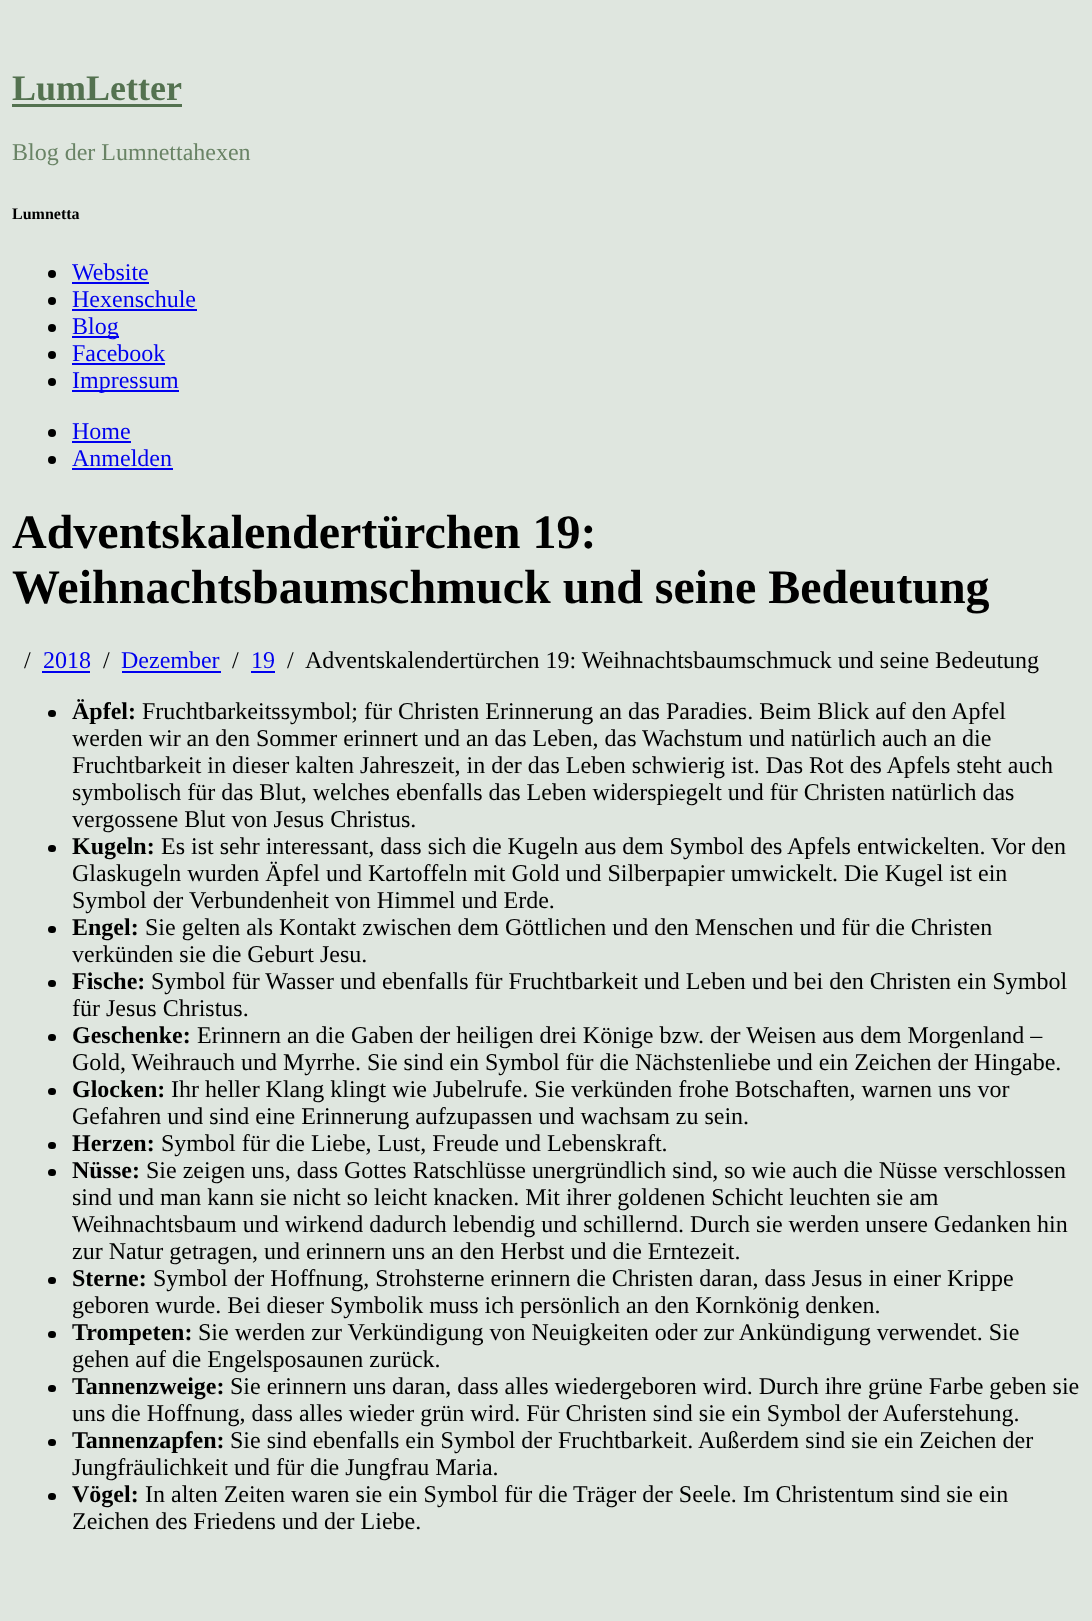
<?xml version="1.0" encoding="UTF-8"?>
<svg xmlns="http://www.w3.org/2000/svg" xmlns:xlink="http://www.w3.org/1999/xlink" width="1092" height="1621">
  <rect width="100%" height="100%" fill="#dfe6df" />
  <rect x="12" y="104" width="170" height="3" fill="#547250" />
  <circle cx="52" cy="274" r="4" fill="#000000" />
  <rect x="72" y="282" width="77" height="2" fill="#0000ee" />
  <circle cx="52" cy="301" r="4" fill="#000000" />
  <rect x="72" y="309" width="125" height="2" fill="#0000ee" />
  <circle cx="52" cy="328" r="4" fill="#000000" />
  <rect x="72" y="336" width="47" height="2" fill="#0000ee" />
  <circle cx="52" cy="355" r="4" fill="#000000" />
  <rect x="72" y="363" width="93" height="2" fill="#0000ee" />
  <circle cx="52" cy="382" r="4" fill="#000000" />
  <rect x="72" y="390" width="107" height="2" fill="#0000ee" />
  <circle cx="52" cy="433" r="4" fill="#000000" />
  <rect x="72" y="441" width="59" height="2" fill="#0000ee" />
  <circle cx="52" cy="460" r="4" fill="#000000" />
  <rect x="72" y="468" width="101" height="2" fill="#0000ee" />
  <rect x="42" y="671" width="48" height="2" fill="#0000ee" />
  <rect x="122" y="671" width="99" height="2" fill="#0000ee" />
  <rect x="251" y="671" width="24" height="2" fill="#0000ee" />
  <rect x="48" y="710" width="8" height="7" rx="3.5" fill="#000000" />
  <rect x="48" y="845" width="8" height="7" rx="3.5" fill="#000000" />
  <rect x="48" y="926" width="8" height="7" rx="3.5" fill="#000000" />
  <rect x="48" y="980" width="8" height="7" rx="3.5" fill="#000000" />
  <rect x="48" y="1034" width="8" height="7" rx="3.5" fill="#000000" />
  <rect x="48" y="1088" width="8" height="7" rx="3.5" fill="#000000" />
  <rect x="48" y="1142" width="8" height="7" rx="3.5" fill="#000000" />
  <rect x="48" y="1169" width="8" height="7" rx="3.5" fill="#000000" />
  <rect x="48" y="1277" width="8" height="7" rx="3.5" fill="#000000" />
  <rect x="48" y="1331" width="8" height="7" rx="3.5" fill="#000000" />
  <rect x="48" y="1385" width="8" height="7" rx="3.5" fill="#000000" />
  <rect x="48" y="1439" width="8" height="7" rx="3.5" fill="#000000" />
  <rect x="48" y="1493" width="8" height="7" rx="3.5" fill="#000000" />
  <text x="12" y="100" style="font-family: Liberation Serif; font-size: 36px; font-weight: bold; fill: #547250">LumLetter</text>
  <text x="12" y="160" style="font-family: Liberation Serif; font-size: 24px; fill: #698365">Blog der Lumnettahexen</text>
  <text x="12" y="219" style="font-family: Liberation Serif; font-size: 16px; font-weight: bold; fill: #000000">Lumnetta</text>
  <text x="72" y="280" style="font-family: Liberation Serif; font-size: 24px; fill: #0000ee">Website</text>
  <text x="72" y="307" style="font-family: Liberation Serif; font-size: 24px; fill: #0000ee">Hexenschule</text>
  <text x="72" y="334" style="font-family: Liberation Serif; font-size: 24px; fill: #0000ee">Blog</text>
  <text x="72" y="361" style="font-family: Liberation Serif; font-size: 24px; fill: #0000ee">Facebook</text>
  <text x="72" y="388" style="font-family: Liberation Serif; font-size: 24px; fill: #0000ee">Impressum</text>
  <text x="72" y="439" style="font-family: Liberation Serif; font-size: 24px; fill: #0000ee">Home</text>
  <text x="72" y="466" style="font-family: Liberation Serif; font-size: 24px; fill: #0000ee">Anmelden</text>
  <text x="12" y="548" style="font-family: Liberation Serif; font-size: 48px; font-weight: bold; fill: #000000">Adventskalendertürchen 19:</text>
  <text x="12" y="603" style="font-family: Liberation Serif; font-size: 48px; font-weight: bold; fill: #000000">Weihnachtsbaumschmuck und seine Bedeutung</text>
  <text x="24" y="668" style="font-family: Liberation Serif; font-size: 24px; fill: #000000">/</text>
  <text x="43" y="668" style="font-family: Liberation Serif; font-size: 24px; fill: #0000ee">2018</text>
  <text x="103" y="668" style="font-family: Liberation Serif; font-size: 24px; fill: #000000">/</text>
  <text x="121" y="668" style="font-family: Liberation Serif; font-size: 24px; fill: #0000ee">Dezember</text>
  <text x="232" y="668" style="font-family: Liberation Serif; font-size: 24px; fill: #000000">/</text>
  <text x="251" y="668" style="font-family: Liberation Serif; font-size: 24px; fill: #0000ee">19</text>
  <text x="287" y="668" style="font-family: Liberation Serif; font-size: 24px; fill: #000000">/</text>
  <text x="305" y="668" style="font-family: Liberation Serif; font-size: 24px; fill: #000000">Adventskalendertürchen 19: Weihnachtsbaumschmuck und seine Bedeutung</text>
  <text x="72" y="719" style="font-family: Liberation Serif; font-size: 24px; font-weight: bold; fill: #000000">Äpfel:</text>
  <text x="142" y="719" style="font-family: Liberation Serif; font-size: 24px; fill: #000000">Fruchtbarkeitssymbol; für Christen Erinnerung an das Paradies. Beim Blick auf den Apfel</text>
  <text x="72" y="746" style="font-family: Liberation Serif; font-size: 24px; fill: #000000">werden wir an den Sommer erinnert und an das Leben, das Wachstum und natürlich auch an die</text>
  <text x="72" y="773" style="font-family: Liberation Serif; font-size: 24px; fill: #000000">Fruchtbarkeit in dieser kalten Jahreszeit, in der das Leben schwierig ist. Das Rot des Apfels steht auch</text>
  <text x="72" y="800" style="font-family: Liberation Serif; font-size: 24px; fill: #000000">symbolisch für das Blut, welches ebenfalls das Leben widerspiegelt und für Christen natürlich das</text>
  <text x="72" y="827" style="font-family: Liberation Serif; font-size: 24px; fill: #000000">vergossene Blut von Jesus Christus.</text>
  <text x="72" y="854" style="font-family: Liberation Serif; font-size: 24px; font-weight: bold; fill: #000000">Kugeln:</text>
  <text x="161" y="854" style="font-family: Liberation Serif; font-size: 24px; fill: #000000">Es ist sehr interessant, dass sich die Kugeln aus dem Symbol des Apfels entwickelten. Vor den</text>
  <text x="72" y="881" style="font-family: Liberation Serif; font-size: 24px; fill: #000000">Glaskugeln wurden Äpfel und Kartoffeln mit Gold und Silberpapier umwickelt. Die Kugel ist ein</text>
  <text x="72" y="908" style="font-family: Liberation Serif; font-size: 24px; fill: #000000">Symbol der Verbundenheit von Himmel und Erde.</text>
  <text x="72" y="935" style="font-family: Liberation Serif; font-size: 24px; font-weight: bold; fill: #000000">Engel:</text>
  <text x="145" y="935" style="font-family: Liberation Serif; font-size: 24px; fill: #000000">Sie gelten als Kontakt zwischen dem Göttlichen und den Menschen und für die Christen</text>
  <text x="72" y="962" style="font-family: Liberation Serif; font-size: 24px; fill: #000000">verkünden sie die Geburt Jesu.</text>
  <text x="72" y="989" style="font-family: Liberation Serif; font-size: 24px; font-weight: bold; fill: #000000">Fische:</text>
  <text x="151" y="989" style="font-family: Liberation Serif; font-size: 24px; fill: #000000">Symbol für Wasser und ebenfalls für Fruchtbarkeit und Leben und bei den Christen ein Symbol</text>
  <text x="72" y="1016" style="font-family: Liberation Serif; font-size: 24px; fill: #000000">für Jesus Christus.</text>
  <text x="72" y="1043" style="font-family: Liberation Serif; font-size: 24px; font-weight: bold; fill: #000000">Geschenke:</text>
  <text x="197" y="1043" style="font-family: Liberation Serif; font-size: 24px; fill: #000000">Erinnern an die Gaben der heiligen drei Könige bzw. der Weisen aus dem Morgenland –</text>
  <text x="72" y="1070" style="font-family: Liberation Serif; font-size: 24px; fill: #000000">Gold, Weihrauch und Myrrhe. Sie sind ein Symbol für die Nächstenliebe und ein Zeichen der Hingabe.</text>
  <text x="72" y="1097" style="font-family: Liberation Serif; font-size: 24px; font-weight: bold; fill: #000000">Glocken:</text>
  <text x="171" y="1097" style="font-family: Liberation Serif; font-size: 24px; fill: #000000">Ihr heller Klang klingt wie Jubelrufe. Sie verkünden frohe Botschaften, warnen uns vor</text>
  <text x="72" y="1124" style="font-family: Liberation Serif; font-size: 24px; fill: #000000">Gefahren und sind eine Erinnerung aufzupassen und wachsam zu sein.</text>
  <text x="72" y="1151" style="font-family: Liberation Serif; font-size: 24px; font-weight: bold; fill: #000000">Herzen:</text>
  <text x="161" y="1151" style="font-family: Liberation Serif; font-size: 24px; fill: #000000">Symbol für die Liebe, Lust, Freude und Lebenskraft.</text>
  <text x="72" y="1178" style="font-family: Liberation Serif; font-size: 24px; font-weight: bold; fill: #000000">Nüsse:</text>
  <text x="146" y="1178" style="font-family: Liberation Serif; font-size: 24px; fill: #000000">Sie zeigen uns, dass Gottes Ratschlüsse unergründlich sind, so wie auch die Nüsse verschlossen</text>
  <text x="72" y="1205" style="font-family: Liberation Serif; font-size: 24px; fill: #000000">sind und man kann sie nicht so leicht knacken. Mit ihrer goldenen Schicht leuchten sie am</text>
  <text x="72" y="1232" style="font-family: Liberation Serif; font-size: 24px; fill: #000000">Weihnachtsbaum und wirkend dadurch lebendig und schillernd. Durch sie werden unsere Gedanken hin</text>
  <text x="72" y="1259" style="font-family: Liberation Serif; font-size: 24px; fill: #000000">zur Natur getragen, und erinnern uns an den Herbst und die Erntezeit.</text>
  <text x="72" y="1286" style="font-family: Liberation Serif; font-size: 24px; font-weight: bold; fill: #000000">Sterne:</text>
  <text x="153" y="1286" style="font-family: Liberation Serif; font-size: 24px; fill: #000000">Symbol der Hoffnung, Strohsterne erinnern die Christen daran, dass Jesus in einer Krippe</text>
  <text x="72" y="1313" style="font-family: Liberation Serif; font-size: 24px; fill: #000000">geboren wurde. Bei dieser Symbolik muss ich persönlich an den Kornkönig denken.</text>
  <text x="72" y="1340" style="font-family: Liberation Serif; font-size: 24px; font-weight: bold; fill: #000000">Trompeten:</text>
  <text x="198" y="1340" style="font-family: Liberation Serif; font-size: 24px; fill: #000000">Sie werden zur Verkündigung von Neuigkeiten oder zur Ankündigung verwendet. Sie</text>
  <text x="72" y="1367" style="font-family: Liberation Serif; font-size: 24px; fill: #000000">gehen auf die Engelsposaunen zurück.</text>
  <text x="72" y="1394" style="font-family: Liberation Serif; font-size: 24px; font-weight: bold; fill: #000000">Tannenzweige:</text>
  <text x="230" y="1394" style="font-family: Liberation Serif; font-size: 24px; fill: #000000">Sie erinnern uns daran, dass alles wiedergeboren wird. Durch ihre grüne Farbe geben sie</text>
  <text x="72" y="1421" style="font-family: Liberation Serif; font-size: 24px; fill: #000000">uns die Hoffnung, dass alles wieder grün wird. Für Christen sind sie ein Symbol der Auferstehung.</text>
  <text x="72" y="1448" style="font-family: Liberation Serif; font-size: 24px; font-weight: bold; fill: #000000">Tannenzapfen:</text>
  <text x="230" y="1448" style="font-family: Liberation Serif; font-size: 24px; fill: #000000">Sie sind ebenfalls ein Symbol der Fruchtbarkeit. Außerdem sind sie ein Zeichen der</text>
  <text x="72" y="1475" style="font-family: Liberation Serif; font-size: 24px; fill: #000000">Jungfräulichkeit und für die Jungfrau Maria.</text>
  <text x="72" y="1502" style="font-family: Liberation Serif; font-size: 24px; font-weight: bold; fill: #000000">Vögel:</text>
  <text x="145" y="1502" style="font-family: Liberation Serif; font-size: 24px; fill: #000000">In alten Zeiten waren sie ein Symbol für die Träger der Seele. Im Christentum sind sie ein</text>
  <text x="72" y="1529" style="font-family: Liberation Serif; font-size: 24px; fill: #000000">Zeichen des Friedens und der Liebe.</text>
</svg>
